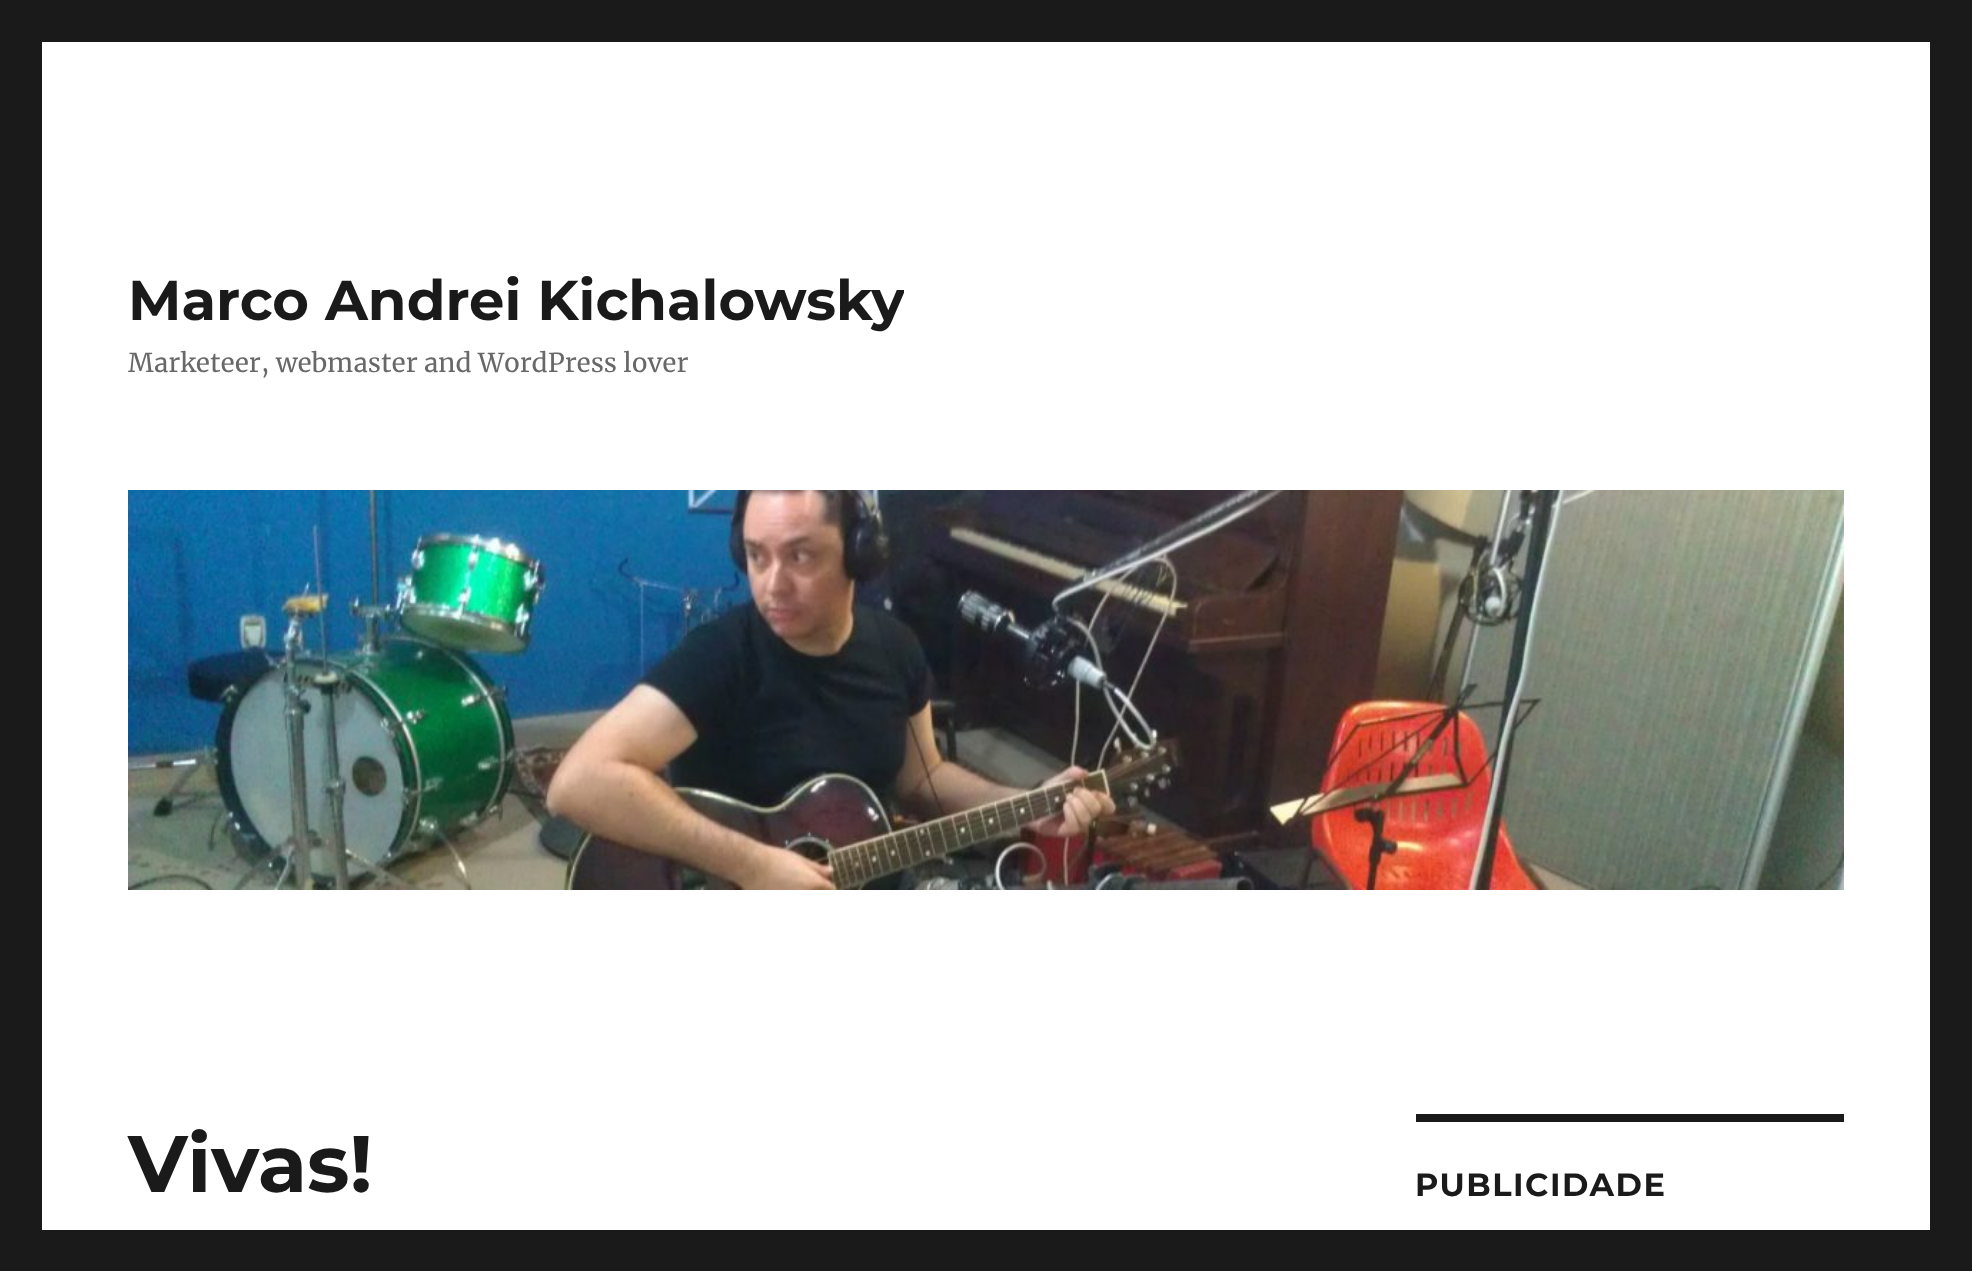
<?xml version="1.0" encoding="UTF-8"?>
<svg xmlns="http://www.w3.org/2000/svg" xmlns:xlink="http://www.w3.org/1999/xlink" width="1972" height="1271">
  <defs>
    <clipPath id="clip1"><rect x="128" y="266" width="776" height="112" /></clipPath>
  </defs>
  <rect width="100%" height="100%" fill="#1a1a1a" />
  <rect x="42" y="42" width="1888" height="1188" fill="#ffffff" />
  <image x="128" y="490" width="1716" height="400" xlink:href="image1.png" />
  <rect x="1416" y="1114" width="428" height="8" fill="#1a1a1a" />
  <g clip-path="url(#clip1)">
    <text x="128" y="320" style="font-family: Montserrat; font-size: 56px; font-weight: 100; fill: #1a1a1a">Marco Andrei Kichalowsky</text>
  </g>
  <text x="128" y="372" style="font-family: Merriweather; font-size: 26px; fill: #686868">Marketeer, webmaster and WordPress lover</text>
  <text x="128" y="1192" style="font-family: Montserrat; font-size: 80px; font-weight: 100; fill: #1a1a1a">Vivas!</text>
  <text x="1415" y="1196" style="font-family: Montserrat; font-size: 32px; font-weight: 100; letter-spacing: 1.5px; fill: #1a1a1a">PUBLICIDADE</text>
</svg>
